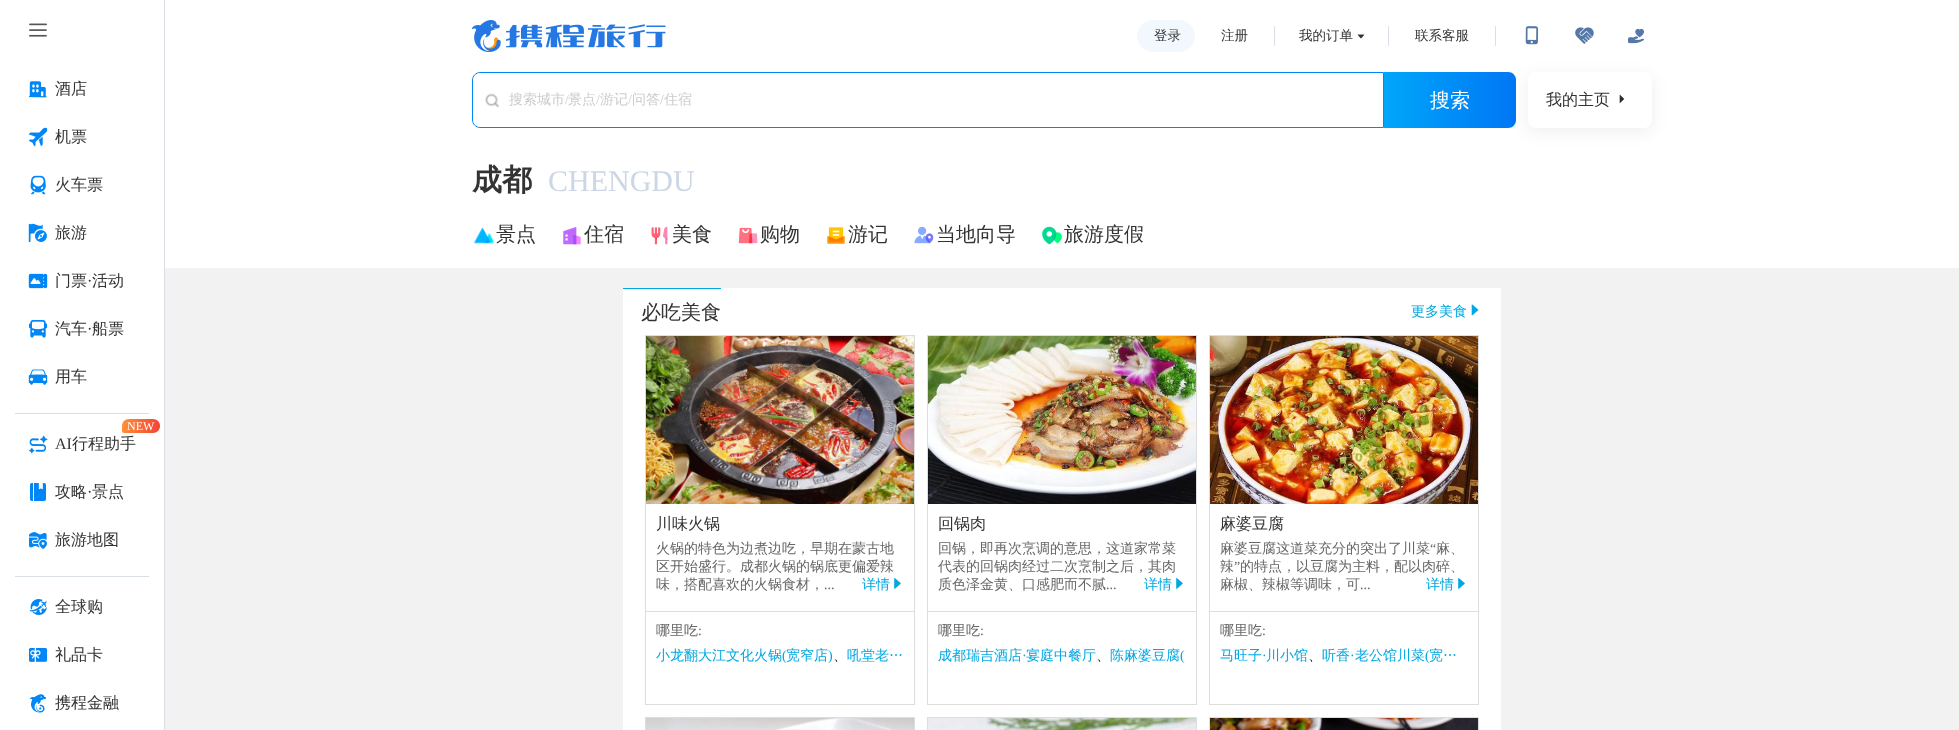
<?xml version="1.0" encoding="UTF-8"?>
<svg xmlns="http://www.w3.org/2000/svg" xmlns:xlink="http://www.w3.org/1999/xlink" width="1959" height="730">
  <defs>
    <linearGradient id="g1" gradientUnits="userSpaceOnUse" x1="122" y1="426" x2="160" y2="426"><stop offset="0" stop-color="#ff9038" /><stop offset="1" stop-color="#f54336" /></linearGradient>
    <linearGradient id="g2" gradientUnits="userSpaceOnUse" x1="1384" y1="100" x2="1516" y2="100"><stop offset="0" stop-color="#00a7fa" /><stop offset="1" stop-color="#0076f5" /></linearGradient>
  </defs>
  <rect width="100%" height="100%" fill="#ffffff" />
  <rect x="164" width="1" height="730" fill="#dadfe6" />
  <image x="29" y="23" width="18" height="14" xlink:href="image1.png" />
  <image x="29" y="81" width="18" height="17" xlink:href="image2.png" />
  <image x="28" y="127" width="20" height="20" xlink:href="image3.png" />
  <image x="30" y="175" width="16" height="20" xlink:href="image4.png" />
  <image x="28" y="223" width="19" height="19" xlink:href="image5.png" />
  <image x="28" y="273" width="20" height="16" xlink:href="image6.png" />
  <image x="29" y="320" width="18" height="18" xlink:href="image7.png" />
  <image x="28" y="369" width="20" height="16" xlink:href="image8.png" />
  <rect x="15" y="413" width="134" height="1" fill="#dadfe6" />
  <image x="29" y="435" width="19" height="19" xlink:href="image9.png" />
  <path d="M 129 419 h 24 c 4 0 7 3 7 7 c 0 4 -3 7 -7 7 h -29 c -1 0 -2 -1 -2 -2 v -5 c 0 -4 3 -7 7 -7 z" fill="url(#g1)" />
  <image x="30" y="483" width="16" height="18" xlink:href="image10.png" />
  <image x="29" y="532" width="18" height="17" xlink:href="image11.png" />
  <rect x="15" y="576" width="134" height="1" fill="#dadfe6" />
  <image x="30" y="599" width="17" height="16" xlink:href="image12.png" />
  <image x="29" y="648" width="18" height="14" xlink:href="image13.png" />
  <image x="29" y="694" width="17" height="19" xlink:href="image14.png" />
  <image x="472" y="20" width="194" height="32" xlink:href="image15.png" />
  <rect x="1137" y="20" width="58" height="32" rx="16" fill="#f2f8fe" />
  <rect x="1274" y="26" width="1" height="20" fill="#dadfe6" />
  <image x="1357" y="34" width="8" height="5" xlink:href="image16.png" />
  <rect x="1388" y="26" width="1" height="20" fill="#dadfe6" />
  <rect x="1495" y="26" width="1" height="20" fill="#dadfe6" />
  <image x="1525" y="26" width="14" height="19" xlink:href="image17.png" />
  <image x="1575" y="27" width="19" height="17" xlink:href="image18.png" />
  <image x="1627" y="28" width="18" height="16" xlink:href="image19.png" />
  <rect x="165" y="268" width="1794" height="462" fill="#f2f2f2" />
  <path d="M 480 72.5 h 903.5 v 55 h -903.5 c -4 0 -7.5 -3.5 -7.5 -7.5 v -40 c 0 -4 3.5 -7.5 7.5 -7.5 z" fill="none" stroke="#0086f6" />
  <image x="485" y="93" width="15" height="15" xlink:href="image20.png" />
  <path d="M 1384 72 h 124 c 4.5 0 8 3.5 8 8 v 40 c 0 4.5 -3.5 8 -8 8 h -124 z" fill="url(#g2)" />
  <rect x="1527" y="75" width="126" height="58" rx="9" fill="#000000" fill-opacity="0.06" filter="blur(8px)" />
  <rect x="1528" y="72" width="124" height="56" rx="8" fill="#ffffff" />
  <image x="1614" y="93" width="11" height="11" xlink:href="image21.png" />
  <image x="473" y="227" width="22" height="17" xlink:href="image22.png" />
  <image x="563" y="227" width="18" height="18" xlink:href="image23.png" />
  <image x="651" y="226" width="17" height="19" xlink:href="image24.png" />
  <image x="738" y="227" width="20" height="17" xlink:href="image25.png" />
  <image x="827" y="227" width="18" height="17" xlink:href="image26.png" />
  <image x="914" y="226" width="20" height="18" xlink:href="image27.png" />
  <image x="1042" y="226" width="20" height="19" xlink:href="image28.png" />
  <rect x="623" y="288" width="878" height="442" fill="#ffffff" />
  <rect x="623" y="288" width="98" height="1" fill="#00a7e1" />
  <image x="1471" y="304" width="8" height="12" xlink:href="image29.png" />
  <rect x="645.5" y="335.5" width="269" height="276" fill="none" stroke="#dddddd" />
  <image x="646" y="336" width="268" height="168" xlink:href="image30.png" />
  <image x="894" y="578" width="7" height="11" xlink:href="image31.png" />
  <rect x="914" y="612" width="1" height="93" fill="#dddddd" />
  <rect x="645" y="704" width="270" height="1" fill="#dddddd" />
  <rect x="645" y="612" width="1" height="93" fill="#dddddd" />
  <rect x="927.5" y="335.5" width="269" height="276" fill="none" stroke="#dddddd" />
  <image x="928" y="336" width="268" height="168" xlink:href="image32.png" />
  <image x="1176" y="578" width="7" height="11" xlink:href="image31.png" />
  <rect x="1196" y="612" width="1" height="93" fill="#dddddd" />
  <rect x="927" y="704" width="270" height="1" fill="#dddddd" />
  <rect x="927" y="612" width="1" height="93" fill="#dddddd" />
  <rect x="1209.5" y="335.5" width="269" height="276" fill="none" stroke="#dddddd" />
  <image x="1210" y="336" width="268" height="168" xlink:href="image33.png" />
  <image x="1458" y="578" width="7" height="11" xlink:href="image31.png" />
  <rect x="1478" y="612" width="1" height="93" fill="#dddddd" />
  <rect x="1209" y="704" width="270" height="1" fill="#dddddd" />
  <rect x="1209" y="612" width="1" height="93" fill="#dddddd" />
  <rect x="645.5" y="717.5" width="269" height="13" fill="none" stroke="#dddddd" />
  <image x="646" y="718" width="268" height="12" xlink:href="image34.png" />
  <rect x="927.5" y="717.5" width="269" height="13" fill="none" stroke="#dddddd" />
  <image x="928" y="718" width="268" height="12" xlink:href="image35.png" />
  <rect x="1209.5" y="717.5" width="269" height="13" fill="none" stroke="#dddddd" />
  <image x="1210" y="718" width="268" height="12" xlink:href="image36.png" />
  <text x="55" y="94" style="font-family: WenQuanYi Zen Hei; font-size: 16px; font-weight: 500; fill: #333333">酒店</text>
  <text x="55" y="142" style="font-family: WenQuanYi Zen Hei; font-size: 16px; font-weight: 500; fill: #333333">机票</text>
  <text x="55" y="190" style="font-family: WenQuanYi Zen Hei; font-size: 16px; font-weight: 500; fill: #333333">火车票</text>
  <text x="55" y="238" style="font-family: WenQuanYi Zen Hei; font-size: 16px; font-weight: 500; fill: #333333">旅游</text>
  <text x="55" y="286" style="font-family: WenQuanYi Zen Hei; font-size: 16px; font-weight: 500; fill: #333333">门票</text>
  <text x="87" y="286" style="font-family: Liberation Serif; font-size: 16px; fill: #333333">·</text>
  <text x="92" y="286" style="font-family: WenQuanYi Zen Hei; font-size: 16px; font-weight: 500; fill: #333333">活动</text>
  <text x="55" y="334" style="font-family: WenQuanYi Zen Hei; font-size: 16px; font-weight: 500; fill: #333333">汽车</text>
  <text x="87" y="334" style="font-family: Liberation Serif; font-size: 16px; fill: #333333">·</text>
  <text x="92" y="334" style="font-family: WenQuanYi Zen Hei; font-size: 16px; font-weight: 500; fill: #333333">船票</text>
  <text x="55" y="382" style="font-family: WenQuanYi Zen Hei; font-size: 16px; font-weight: 500; fill: #333333">用车</text>
  <text x="127" y="430" style="font-family: Liberation Serif; font-size: 12px; fill: #ffffff">NEW</text>
  <text x="55" y="449" style="font-family: Liberation Serif; font-size: 16px; fill: #333333">AI</text>
  <text x="72" y="449" style="font-family: WenQuanYi Zen Hei; font-size: 16px; font-weight: 500; fill: #333333">行程助手</text>
  <text x="55" y="497" style="font-family: WenQuanYi Zen Hei; font-size: 16px; font-weight: 500; fill: #333333">攻略</text>
  <text x="87" y="497" style="font-family: Liberation Serif; font-size: 16px; fill: #333333">·</text>
  <text x="92" y="497" style="font-family: WenQuanYi Zen Hei; font-size: 16px; font-weight: 500; fill: #333333">景点</text>
  <text x="55" y="545" style="font-family: WenQuanYi Zen Hei; font-size: 16px; font-weight: 500; fill: #333333">旅游地图</text>
  <text x="55" y="612" style="font-family: WenQuanYi Zen Hei; font-size: 16px; font-weight: 500; fill: #333333">全球购</text>
  <text x="55" y="660" style="font-family: WenQuanYi Zen Hei; font-size: 16px; font-weight: 500; fill: #333333">礼品卡</text>
  <text x="55" y="708" style="font-family: WenQuanYi Zen Hei; font-size: 16px; font-weight: 500; fill: #333333">携程金融</text>
  <text x="1154" y="40" style="font-family: WenQuanYi Zen Hei; font-size: 13.5px; font-weight: 500; fill: #333333">登录</text>
  <text x="1221" y="40" style="font-family: WenQuanYi Zen Hei; font-size: 13.5px; font-weight: 500; fill: #333333">注册</text>
  <text x="1299" y="40" style="font-family: WenQuanYi Zen Hei; font-size: 13.5px; font-weight: 500; fill: #333333">我的订单</text>
  <text x="1415" y="40" style="font-family: WenQuanYi Zen Hei; font-size: 13.5px; font-weight: 500; fill: #333333">联系客服</text>
  <text x="509" y="104" style="font-family: WenQuanYi Zen Hei; font-size: 14px; font-weight: 500; fill: #cccccc">搜索城市</text>
  <text x="565" y="104" style="font-family: Liberation Serif; font-size: 14px; fill: #cccccc">/</text>
  <text x="568" y="104" style="font-family: WenQuanYi Zen Hei; font-size: 14px; font-weight: 500; fill: #cccccc">景点</text>
  <text x="596" y="104" style="font-family: Liberation Serif; font-size: 14px; fill: #cccccc">/</text>
  <text x="600" y="104" style="font-family: WenQuanYi Zen Hei; font-size: 14px; font-weight: 500; fill: #cccccc">游记</text>
  <text x="628" y="104" style="font-family: Liberation Serif; font-size: 14px; fill: #cccccc">/</text>
  <text x="632" y="104" style="font-family: WenQuanYi Zen Hei; font-size: 14px; font-weight: 500; fill: #cccccc">问答</text>
  <text x="660" y="104" style="font-family: Liberation Serif; font-size: 14px; fill: #cccccc">/</text>
  <text x="664" y="104" style="font-family: WenQuanYi Zen Hei; font-size: 14px; font-weight: 500; fill: #cccccc">住宿</text>
  <text x="1430" y="107" style="font-family: WenQuanYi Zen Hei; font-size: 20px; font-weight: 500; fill: #ffffff">搜索</text>
  <text x="1546" y="105" style="font-family: WenQuanYi Zen Hei; font-size: 16px; font-weight: 500; fill: #333333">我的主页</text>
  <text x="472" y="190" style="font-family: WenQuanYi Zen Hei; font-size: 30px; font-weight: bold; fill: #333333">成都</text>
  <text x="548" y="191" style="font-family: Liberation Serif; font-size: 30px; fill: #ccd6e5">CHENGDU</text>
  <text x="496" y="241" style="font-family: WenQuanYi Zen Hei; font-size: 20px; font-weight: 500; fill: #333333">景点</text>
  <text x="584" y="241" style="font-family: WenQuanYi Zen Hei; font-size: 20px; font-weight: 500; fill: #333333">住宿</text>
  <text x="672" y="241" style="font-family: WenQuanYi Zen Hei; font-size: 20px; font-weight: 500; fill: #333333">美食</text>
  <text x="760" y="241" style="font-family: WenQuanYi Zen Hei; font-size: 20px; font-weight: 500; fill: #333333">购物</text>
  <text x="848" y="241" style="font-family: WenQuanYi Zen Hei; font-size: 20px; font-weight: 500; fill: #333333">游记</text>
  <text x="936" y="241" style="font-family: WenQuanYi Zen Hei; font-size: 20px; font-weight: 500; fill: #333333">当地向导</text>
  <text x="1064" y="241" style="font-family: WenQuanYi Zen Hei; font-size: 20px; font-weight: 500; fill: #333333">旅游度假</text>
  <text x="641" y="319" style="font-family: WenQuanYi Zen Hei; font-size: 20px; font-weight: 500; fill: #333333">必吃美食</text>
  <text x="1411" y="316" style="font-family: WenQuanYi Zen Hei; font-size: 14px; font-weight: 500; fill: #00a7e1">更多美食</text>
  <text x="656" y="529" style="font-family: WenQuanYi Zen Hei; font-size: 16px; font-weight: 500; fill: #333333">川味火锅</text>
  <text x="656" y="553" style="font-family: WenQuanYi Zen Hei; font-size: 14px; font-weight: 500; fill: #666666">火锅的特色为边煮边吃，早期在蒙古地</text>
  <text x="656" y="571" style="font-family: WenQuanYi Zen Hei; font-size: 14px; font-weight: 500; fill: #666666">区开始盛行。成都火锅的锅底更偏爱辣</text>
  <text x="656" y="589" style="font-family: WenQuanYi Zen Hei; font-size: 14px; font-weight: 500; fill: #666666">味，搭配喜欢的火锅食材，</text>
  <text x="824" y="589" style="font-family: Liberation Serif; font-size: 14px; fill: #666666">...</text>
  <text x="862" y="589" style="font-family: WenQuanYi Zen Hei; font-size: 14px; font-weight: 500; fill: #00a7e1">详情</text>
  <text x="656" y="635" style="font-family: WenQuanYi Zen Hei; font-size: 14px; font-weight: 500; fill: #666666">哪里吃</text>
  <text x="698" y="635" style="font-family: Liberation Serif; font-size: 14px; fill: #666666">:</text>
  <text x="656" y="660" style="font-family: WenQuanYi Zen Hei; font-size: 14px; font-weight: 500; fill: #00a7e1">小龙翻大江文化火锅</text>
  <text x="782" y="660" style="font-family: Liberation Serif; font-size: 14px; fill: #00a7e1">(</text>
  <text x="786" y="660" style="font-family: WenQuanYi Zen Hei; font-size: 14px; font-weight: 500; fill: #00a7e1">宽窄店</text>
  <text x="828" y="660" style="font-family: Liberation Serif; font-size: 14px; fill: #00a7e1">)</text>
  <text x="833" y="660" style="font-family: WenQuanYi Zen Hei; font-size: 14px; font-weight: 500; fill: #000000">、</text>
  <text x="847" y="660" style="font-family: WenQuanYi Zen Hei; font-size: 14px; font-weight: 500; fill: #00a7e1">吼堂老…</text>
  <text x="938" y="529" style="font-family: WenQuanYi Zen Hei; font-size: 16px; font-weight: 500; fill: #333333">回锅肉</text>
  <text x="938" y="553" style="font-family: WenQuanYi Zen Hei; font-size: 14px; font-weight: 500; fill: #666666">回锅，即再次烹调的意思，这道家常菜</text>
  <text x="938" y="571" style="font-family: WenQuanYi Zen Hei; font-size: 14px; font-weight: 500; fill: #666666">代表的回锅肉经过二次烹制之后，其肉</text>
  <text x="938" y="589" style="font-family: WenQuanYi Zen Hei; font-size: 14px; font-weight: 500; fill: #666666">质色泽金黄、口感肥而不腻</text>
  <text x="1106" y="589" style="font-family: Liberation Serif; font-size: 14px; fill: #666666">...</text>
  <text x="1144" y="589" style="font-family: WenQuanYi Zen Hei; font-size: 14px; font-weight: 500; fill: #00a7e1">详情</text>
  <text x="938" y="635" style="font-family: WenQuanYi Zen Hei; font-size: 14px; font-weight: 500; fill: #666666">哪里吃</text>
  <text x="980" y="635" style="font-family: Liberation Serif; font-size: 14px; fill: #666666">:</text>
  <text x="938" y="660" style="font-family: WenQuanYi Zen Hei; font-size: 14px; font-weight: 500; fill: #00a7e1">成都瑞吉酒店</text>
  <text x="1022" y="660" style="font-family: Liberation Serif; font-size: 14px; fill: #00a7e1">·</text>
  <text x="1026" y="660" style="font-family: WenQuanYi Zen Hei; font-size: 14px; font-weight: 500; fill: #00a7e1">宴庭中餐厅</text>
  <text x="1110" y="660" style="font-family: WenQuanYi Zen Hei; font-size: 14px; font-weight: 500; fill: #00a7e1">陈麻婆豆腐</text>
  <text x="1180" y="660" style="font-family: Liberation Serif; font-size: 14px; fill: #00a7e1">(</text>
  <text x="1096" y="660" style="font-family: WenQuanYi Zen Hei; font-size: 14px; font-weight: 500; fill: #000000">、</text>
  <text x="1220" y="529" style="font-family: WenQuanYi Zen Hei; font-size: 16px; font-weight: 500; fill: #333333">麻婆豆腐</text>
  <text x="1220" y="553" style="font-family: WenQuanYi Zen Hei; font-size: 14px; font-weight: 500; fill: #666666">麻婆豆腐这道菜充分的突出了川菜</text>
  <text x="1430" y="553" style="font-family: Liberation Serif; font-size: 14px; fill: #666666">“</text>
  <text x="1436" y="553" style="font-family: WenQuanYi Zen Hei; font-size: 14px; font-weight: 500; fill: #666666">麻、</text>
  <text x="1220" y="571" style="font-family: WenQuanYi Zen Hei; font-size: 14px; font-weight: 500; fill: #666666">辣</text>
  <text x="1234" y="571" style="font-family: Liberation Serif; font-size: 14px; fill: #666666">”</text>
  <text x="1240" y="571" style="font-family: WenQuanYi Zen Hei; font-size: 14px; font-weight: 500; fill: #666666">的特点，以豆腐为主料，配以肉碎、</text>
  <text x="1220" y="589" style="font-family: WenQuanYi Zen Hei; font-size: 14px; font-weight: 500; fill: #666666">麻椒、辣椒等调味，可</text>
  <text x="1360" y="589" style="font-family: Liberation Serif; font-size: 14px; fill: #666666">...</text>
  <text x="1426" y="589" style="font-family: WenQuanYi Zen Hei; font-size: 14px; font-weight: 500; fill: #00a7e1">详情</text>
  <text x="1220" y="635" style="font-family: WenQuanYi Zen Hei; font-size: 14px; font-weight: 500; fill: #666666">哪里吃</text>
  <text x="1262" y="635" style="font-family: Liberation Serif; font-size: 14px; fill: #666666">:</text>
  <text x="1220" y="660" style="font-family: WenQuanYi Zen Hei; font-size: 14px; font-weight: 500; fill: #00a7e1">马旺子</text>
  <text x="1262" y="660" style="font-family: Liberation Serif; font-size: 14px; fill: #00a7e1">·</text>
  <text x="1266" y="660" style="font-family: WenQuanYi Zen Hei; font-size: 14px; font-weight: 500; fill: #00a7e1">川小馆</text>
  <text x="1322" y="660" style="font-family: WenQuanYi Zen Hei; font-size: 14px; font-weight: 500; fill: #00a7e1">听香</text>
  <text x="1350" y="660" style="font-family: Liberation Serif; font-size: 14px; fill: #00a7e1">·</text>
  <text x="1355" y="660" style="font-family: WenQuanYi Zen Hei; font-size: 14px; font-weight: 500; fill: #00a7e1">老公馆川菜</text>
  <text x="1425" y="660" style="font-family: Liberation Serif; font-size: 14px; fill: #00a7e1">(</text>
  <text x="1429" y="660" style="font-family: WenQuanYi Zen Hei; font-size: 14px; font-weight: 500; fill: #00a7e1">宽…</text>
  <text x="1308" y="660" style="font-family: WenQuanYi Zen Hei; font-size: 14px; font-weight: 500; fill: #000000">、</text>
</svg>
